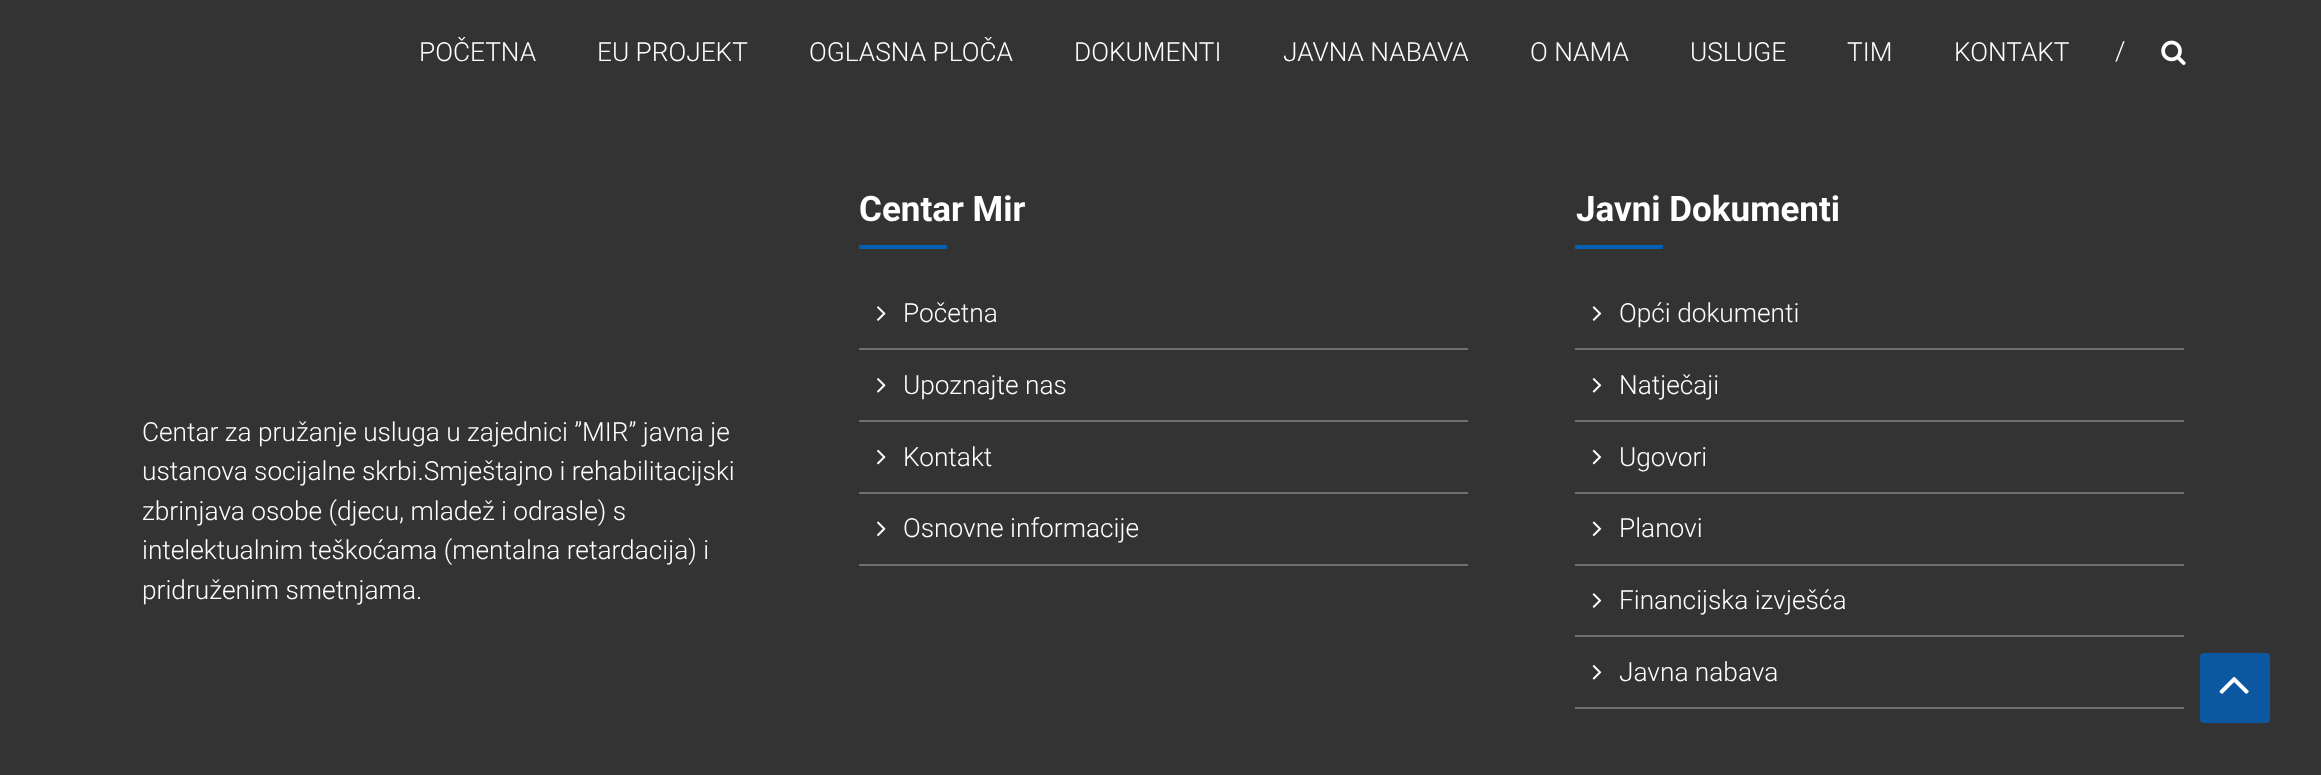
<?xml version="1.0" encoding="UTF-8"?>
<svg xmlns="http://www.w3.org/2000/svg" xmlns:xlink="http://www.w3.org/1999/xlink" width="2321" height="775">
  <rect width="100%" height="100%" fill="#333333" />
  <image x="2161" y="40" width="25" height="25" xlink:href="image1.png" />
  <rect x="859" y="245" width="88" height="4" fill="#045fb4" />
  <rect x="859" y="348" width="609" height="2" fill="#707070" />
  <image x="877" y="306" width="9" height="15" xlink:href="image2.png" />
  <rect x="859" y="420" width="609" height="2" fill="#707070" />
  <image x="877" y="378" width="9" height="15" xlink:href="image3.png" />
  <rect x="859" y="492" width="609" height="2" fill="#707070" />
  <image x="877" y="449" width="9" height="16" xlink:href="image4.png" />
  <rect x="859" y="564" width="609" height="2" fill="#707070" />
  <image x="877" y="521" width="9" height="16" xlink:href="image5.png" />
  <rect x="1575" y="245" width="88" height="4" fill="#045fb4" />
  <rect x="1575" y="348" width="609" height="2" fill="#707070" />
  <image x="1592" y="306" width="10" height="15" xlink:href="image6.png" />
  <rect x="1575" y="420" width="609" height="2" fill="#707070" />
  <image x="1592" y="378" width="10" height="15" xlink:href="image7.png" />
  <rect x="1575" y="492" width="609" height="2" fill="#707070" />
  <image x="1592" y="449" width="10" height="16" xlink:href="image8.png" />
  <rect x="1575" y="564" width="609" height="2" fill="#707070" />
  <image x="1592" y="521" width="10" height="16" xlink:href="image9.png" />
  <rect x="1575" y="635" width="609" height="2" fill="#707070" />
  <image x="1592" y="593" width="10" height="15" xlink:href="image6.png" />
  <rect x="1575" y="707" width="609" height="2" fill="#707070" />
  <image x="1592" y="665" width="10" height="15" xlink:href="image7.png" />
  <rect x="2200" y="653" width="70" height="70" rx="4" fill="#0b58a1" />
  <image x="2219" y="676" width="30" height="18" xlink:href="image10.png" />
  <text x="419" y="61" style="font-family: Roboto; font-size: 26.25px; font-weight: 300; fill: #ffffff">POČETNA</text>
  <text x="597" y="61" style="font-family: Roboto; font-size: 26.25px; font-weight: 300; fill: #ffffff">EU PROJEKT</text>
  <text x="809" y="61" style="font-family: Roboto; font-size: 26.25px; font-weight: 300; fill: #ffffff">OGLASNA PLOČA</text>
  <text x="1074" y="61" style="font-family: Roboto; font-size: 26.25px; font-weight: 300; fill: #ffffff">DOKUMENTI</text>
  <text x="1283" y="61" style="font-family: Roboto; font-size: 26.25px; font-weight: 300; fill: #ffffff">JAVNA NABAVA</text>
  <text x="1530" y="61" style="font-family: Roboto; font-size: 26.25px; font-weight: 300; fill: #ffffff">O NAMA</text>
  <text x="1690" y="61" style="font-family: Roboto; font-size: 26.25px; font-weight: 300; fill: #ffffff">USLUGE</text>
  <text x="1847" y="61" style="font-family: Roboto; font-size: 26.25px; font-weight: 300; fill: #ffffff">TIM</text>
  <text x="1954" y="61" style="font-family: Roboto; font-size: 26.25px; font-weight: 300; fill: #ffffff">KONTAKT</text>
  <text x="2115" y="60" style="font-family: Roboto; font-size: 26.25px; font-weight: 300; fill: #ffffff">/</text>
  <text x="142" y="441" style="font-family: Roboto; font-size: 26.25px; font-weight: 300; fill: #ffffff">Centar za pružanje usluga u zajednici ”MIR” javna je</text>
  <text x="142" y="480" style="font-family: Roboto; font-size: 26.25px; font-weight: 300; fill: #ffffff">ustanova socijalne skrbi.Smještajno i rehabilitacijski</text>
  <text x="142" y="520" style="font-family: Roboto; font-size: 26.25px; font-weight: 300; fill: #ffffff">zbrinjava osobe (djecu, mladež i odrasle) s</text>
  <text x="142" y="559" style="font-family: Roboto; font-size: 26.25px; font-weight: 300; fill: #ffffff">intelektualnim teškoćama (mentalna retardacija) i</text>
  <text x="142" y="599" style="font-family: Roboto; font-size: 26.25px; font-weight: 300; fill: #ffffff">pridruženim smetnjama.</text>
  <text x="859" y="221" style="font-family: Roboto; font-size: 35px; font-weight: bold; fill: #ffffff">Centar Mir</text>
  <text x="903" y="322" style="font-family: Roboto; font-size: 26.25px; font-weight: 300; fill: #ffffff">Početna</text>
  <text x="903" y="394" style="font-family: Roboto; font-size: 26.25px; font-weight: 300; fill: #ffffff">Upoznajte nas</text>
  <text x="903" y="466" style="font-family: Roboto; font-size: 26.25px; font-weight: 300; fill: #ffffff">Kontakt</text>
  <text x="903" y="537" style="font-family: Roboto; font-size: 26.25px; font-weight: 300; fill: #ffffff">Osnovne informacije</text>
  <text x="1576" y="221" style="font-family: Roboto; font-size: 35px; font-weight: bold; fill: #ffffff">Javni Dokumenti</text>
  <text x="1619" y="322" style="font-family: Roboto; font-size: 26.25px; font-weight: 300; fill: #ffffff">Opći dokumenti</text>
  <text x="1619" y="394" style="font-family: Roboto; font-size: 26.25px; font-weight: 300; fill: #ffffff">Natječaji</text>
  <text x="1619" y="466" style="font-family: Roboto; font-size: 26.25px; font-weight: 300; fill: #ffffff">Ugovori</text>
  <text x="1619" y="537" style="font-family: Roboto; font-size: 26.25px; font-weight: 300; fill: #ffffff">Planovi</text>
  <text x="1619" y="609" style="font-family: Roboto; font-size: 26.25px; font-weight: 300; fill: #ffffff">Financijska izvješća</text>
  <text x="1619" y="681" style="font-family: Roboto; font-size: 26.25px; font-weight: 300; fill: #ffffff">Javna nabava</text>
</svg>
